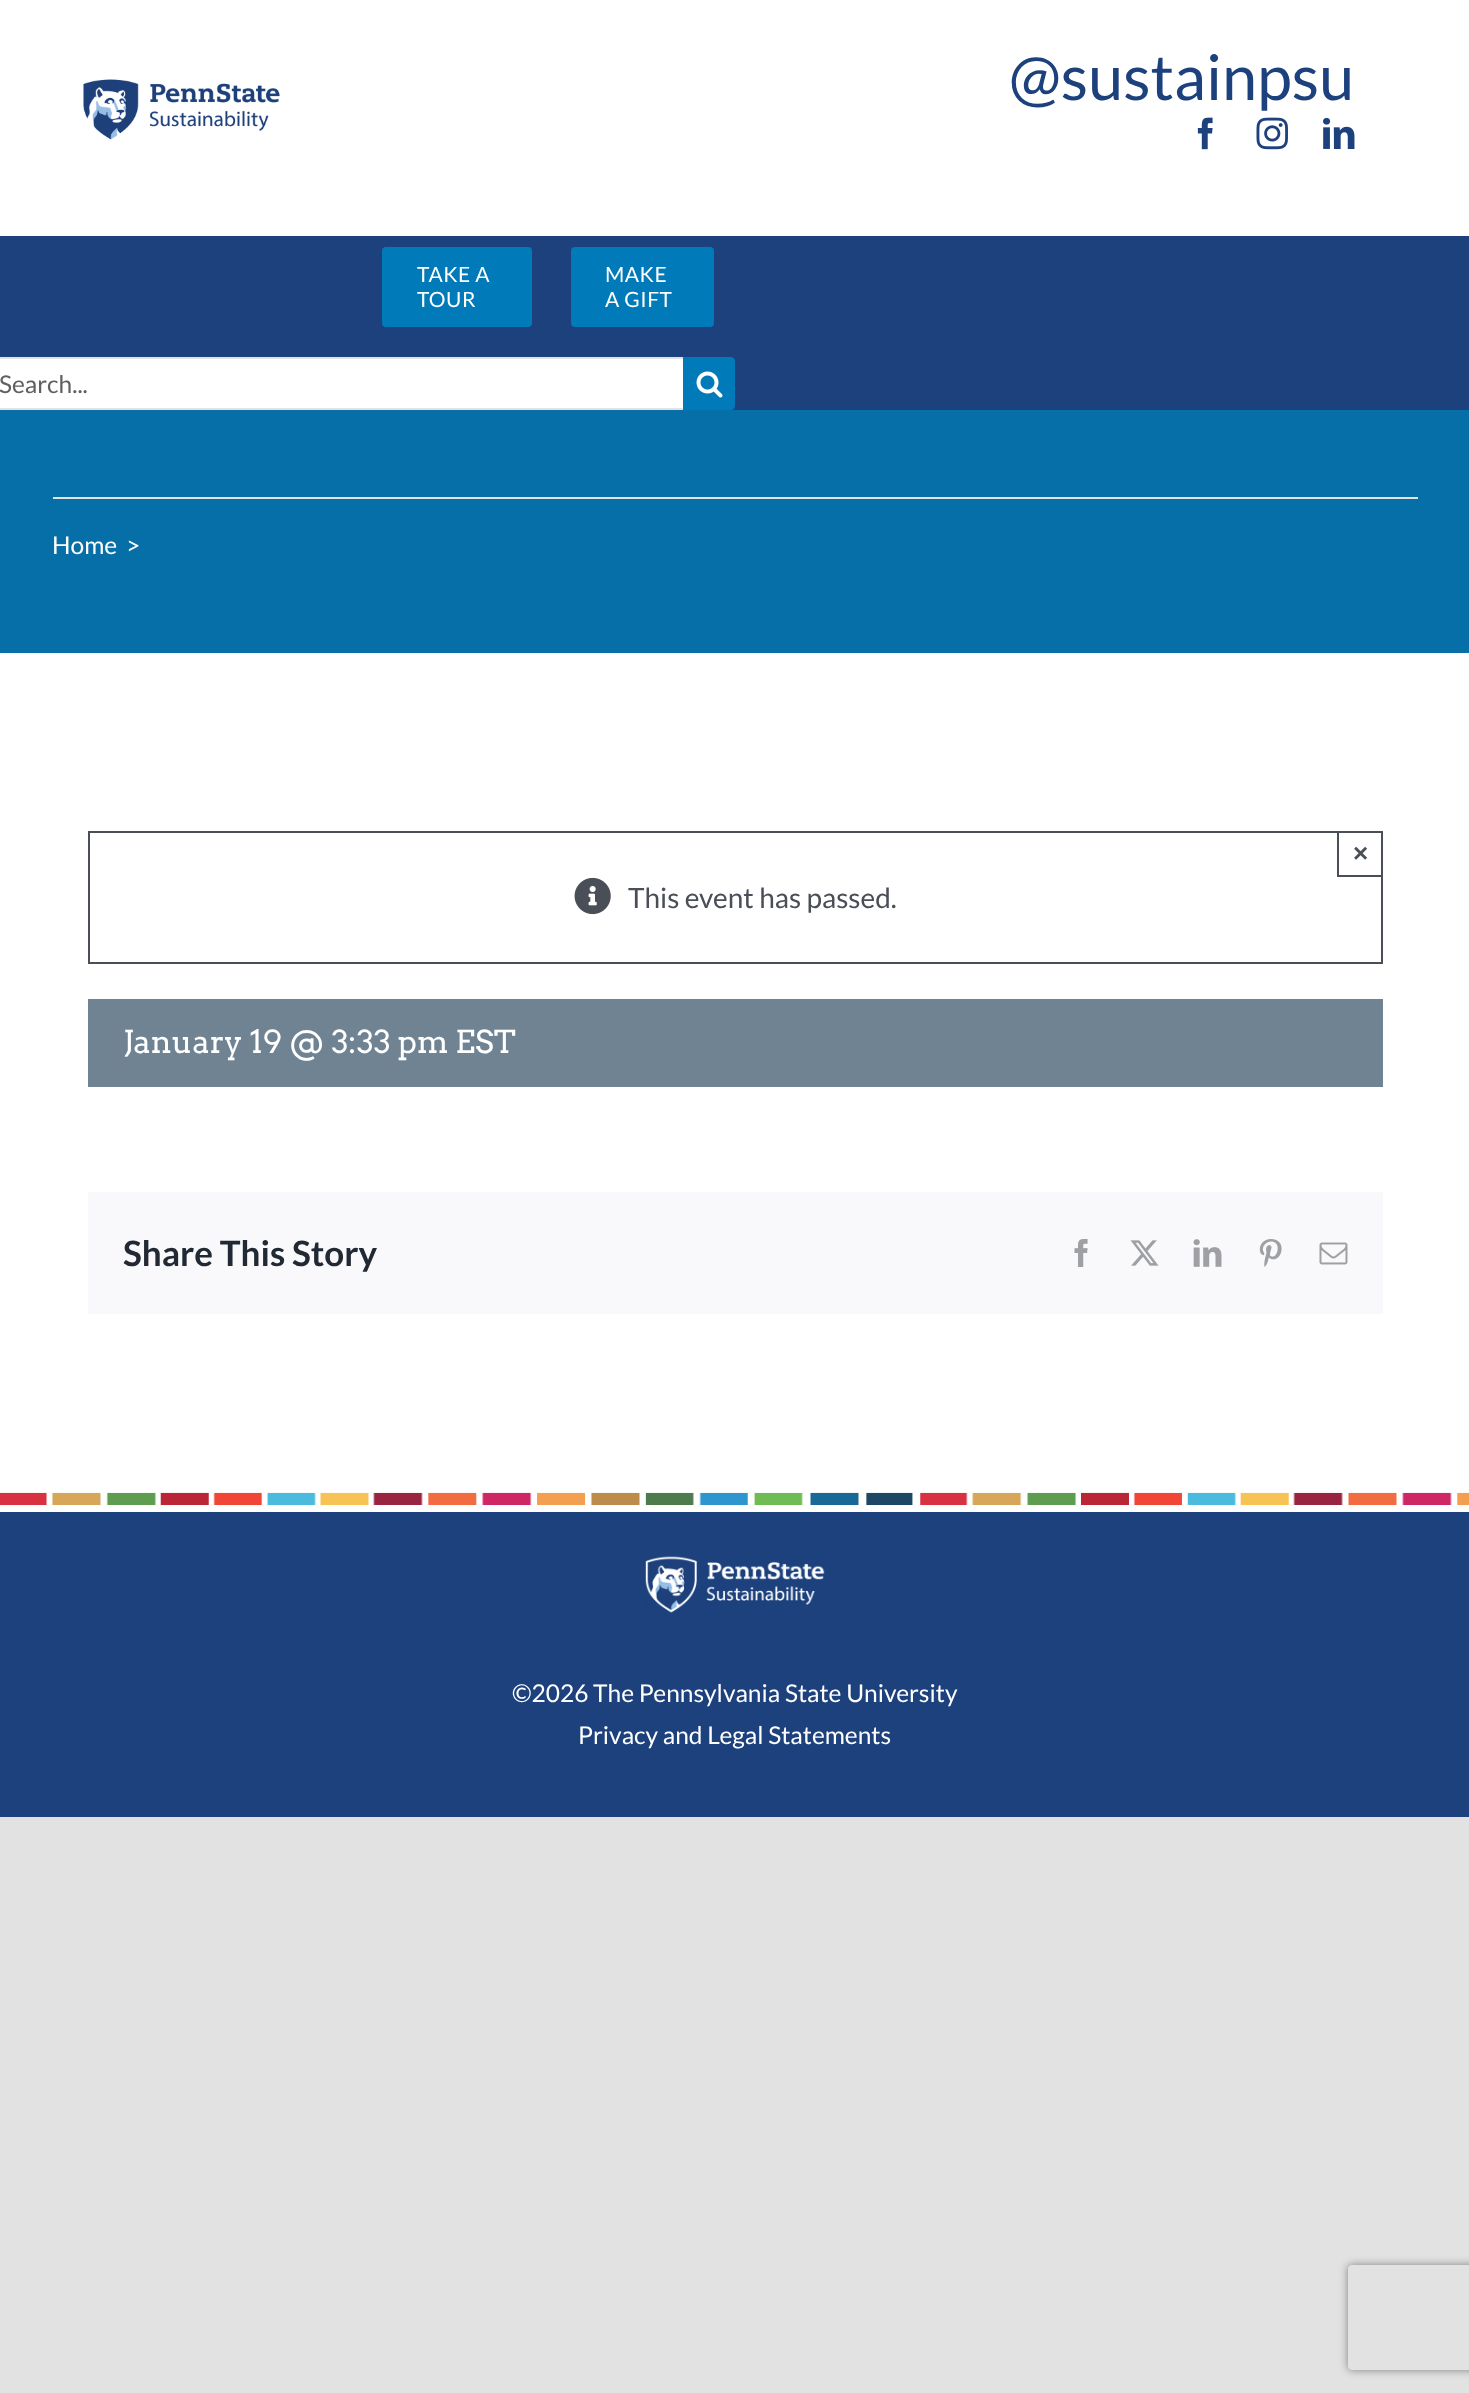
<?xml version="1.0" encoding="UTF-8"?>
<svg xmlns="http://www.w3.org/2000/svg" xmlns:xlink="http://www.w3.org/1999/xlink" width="1469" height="2393">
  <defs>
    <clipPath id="clip1"><path d="M 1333 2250 h 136 v 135 h -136 z m 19 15 h 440 c 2 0 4 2 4 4 v 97 c 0 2 -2 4 -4 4 h -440 c -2 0 -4 -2 -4 -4 v -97 c 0 -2 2 -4 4 -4 z" clip-rule="evenodd" /></clipPath>
  </defs>
  <rect width="100%" height="100%" fill="#e2e2e2" />
  <rect width="1469" height="1512" fill="#ffffff" />
  <image x="83" y="79" width="197" height="61" xlink:href="image1.png" />
  <image x="1197" y="117" width="16" height="33" xlink:href="image2.png" />
  <image x="1256" y="117" width="32" height="33" xlink:href="image3.png" />
  <image x="1323" y="117" width="32" height="32" xlink:href="image4.png" />
  <rect y="236" width="1469" height="174" fill="#1c417d" />
  <rect x="382" y="247" width="150" height="80" rx="4" fill="#007ab8" />
  <rect x="571" y="247" width="143" height="80" rx="4" fill="#007ab8" />
  <rect y="359" width="683" height="49" fill="#ffffff" />
  <rect y="357" width="683" height="2" fill="#e2e2e2" />
  <rect y="408" width="683" height="2" fill="#e2e2e2" />
  <path d="M 683 357 h 48 c 2 0 4 2 4 4 v 45 c 0 2 -2 4 -4 4 h -48 z" fill="#007ab8" />
  <image x="696" y="371" width="27" height="27" xlink:href="image5.png" />
  <rect y="410" width="1469" height="243" fill="#066fa7" />
  <rect x="53" y="497" width="1365" height="2" fill="#e2e2e2" />
  <rect x="89" y="832" width="1293" height="131" fill="none" stroke="#4a4e57" stroke-width="2" />
  <rect x="1337" y="875" width="46" height="2" fill="#4a4e57" />
  <rect x="1337" y="831" width="2" height="46" fill="#4a4e57" />
  <image x="574" y="877" width="37" height="38" xlink:href="image6.png" />
  <rect x="88" y="999" width="1295" height="88" fill="#6f8393" />
  <rect x="88" y="1192" width="1295" height="122" fill="#f9f9fb" />
  <image x="1074" y="1239" width="14" height="28" xlink:href="image7.png" />
  <image x="1130" y="1240" width="29" height="26" xlink:href="image8.png" />
  <image x="1193" y="1239" width="29" height="28" xlink:href="image9.png" />
  <image x="1259" y="1239" width="23" height="28" xlink:href="image10.png" />
  <image x="1319" y="1242" width="29" height="23" xlink:href="image11.png" />
  <rect y="1512" width="1469" height="305" fill="#1c417d" />
  <image x="0" y="1492" width="1469" height="13" xlink:href="image12.png" />
  <image x="645" y="1556" width="180" height="57" xlink:href="image13.png" />
  <g clip-path="url(#clip1)">
    <rect x="1348" y="2265" width="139" height="105" rx="4" fill="#808080" filter="blur(4.5px)" />
  </g>
  <text x="1009" y="100" style="font-family: Lato; font-size: 63px; fill: #1c417d">@sustainpsu</text>
  <text x="417" y="282" style="font-family: Lato; font-size: 21px; letter-spacing: 0.5px; fill: #ffffff">TAKE A</text>
  <text x="417" y="307" style="font-family: Lato; font-size: 21px; letter-spacing: 0.5px; fill: #ffffff">TOUR</text>
  <text x="605" y="282" style="font-family: Lato; font-size: 21px; letter-spacing: 0.5px; fill: #ffffff">MAKE</text>
  <text x="605" y="307" style="font-family: Lato; font-size: 21px; letter-spacing: 0.5px; fill: #ffffff">A GIFT</text>
  <text x="-1" y="393" style="font-family: Lato; font-size: 24.5px; fill: #606060">Search...</text>
  <text x="52" y="554" style="font-family: Lato; font-size: 24.5px; fill: #ffffff">Home</text>
  <text x="126" y="554" style="font-family: Lato; font-size: 24.5px; fill: #ffffff">&gt;</text>
  <text x="1353" y="862" style="font-family: Liberation Sans; font-size: 26px; font-weight: bold; fill: #4a4e57">×</text>
  <text x="628" y="908" style="font-family: Lato; font-size: 28px; fill: #4a4e57">This event has passed.</text>
  <text x="123" y="1053" style="font-family: Arvo; font-size: 31.5px; fill: #ffffff">January 19 @ 3:33 pm EST</text>
  <text x="123" y="1266" style="font-family: Lato; font-size: 35px; font-weight: bold; fill: #212934">Share This Story</text>
  <text x="512" y="1702" style="font-family: Lato; font-size: 24.5px; fill: #ffffff">©2026 The Pennsylvania State University</text>
  <text x="578" y="1744" style="font-family: Lato; font-size: 24.5px; fill: #ffffff">Privacy and Legal Statements</text>
</svg>
